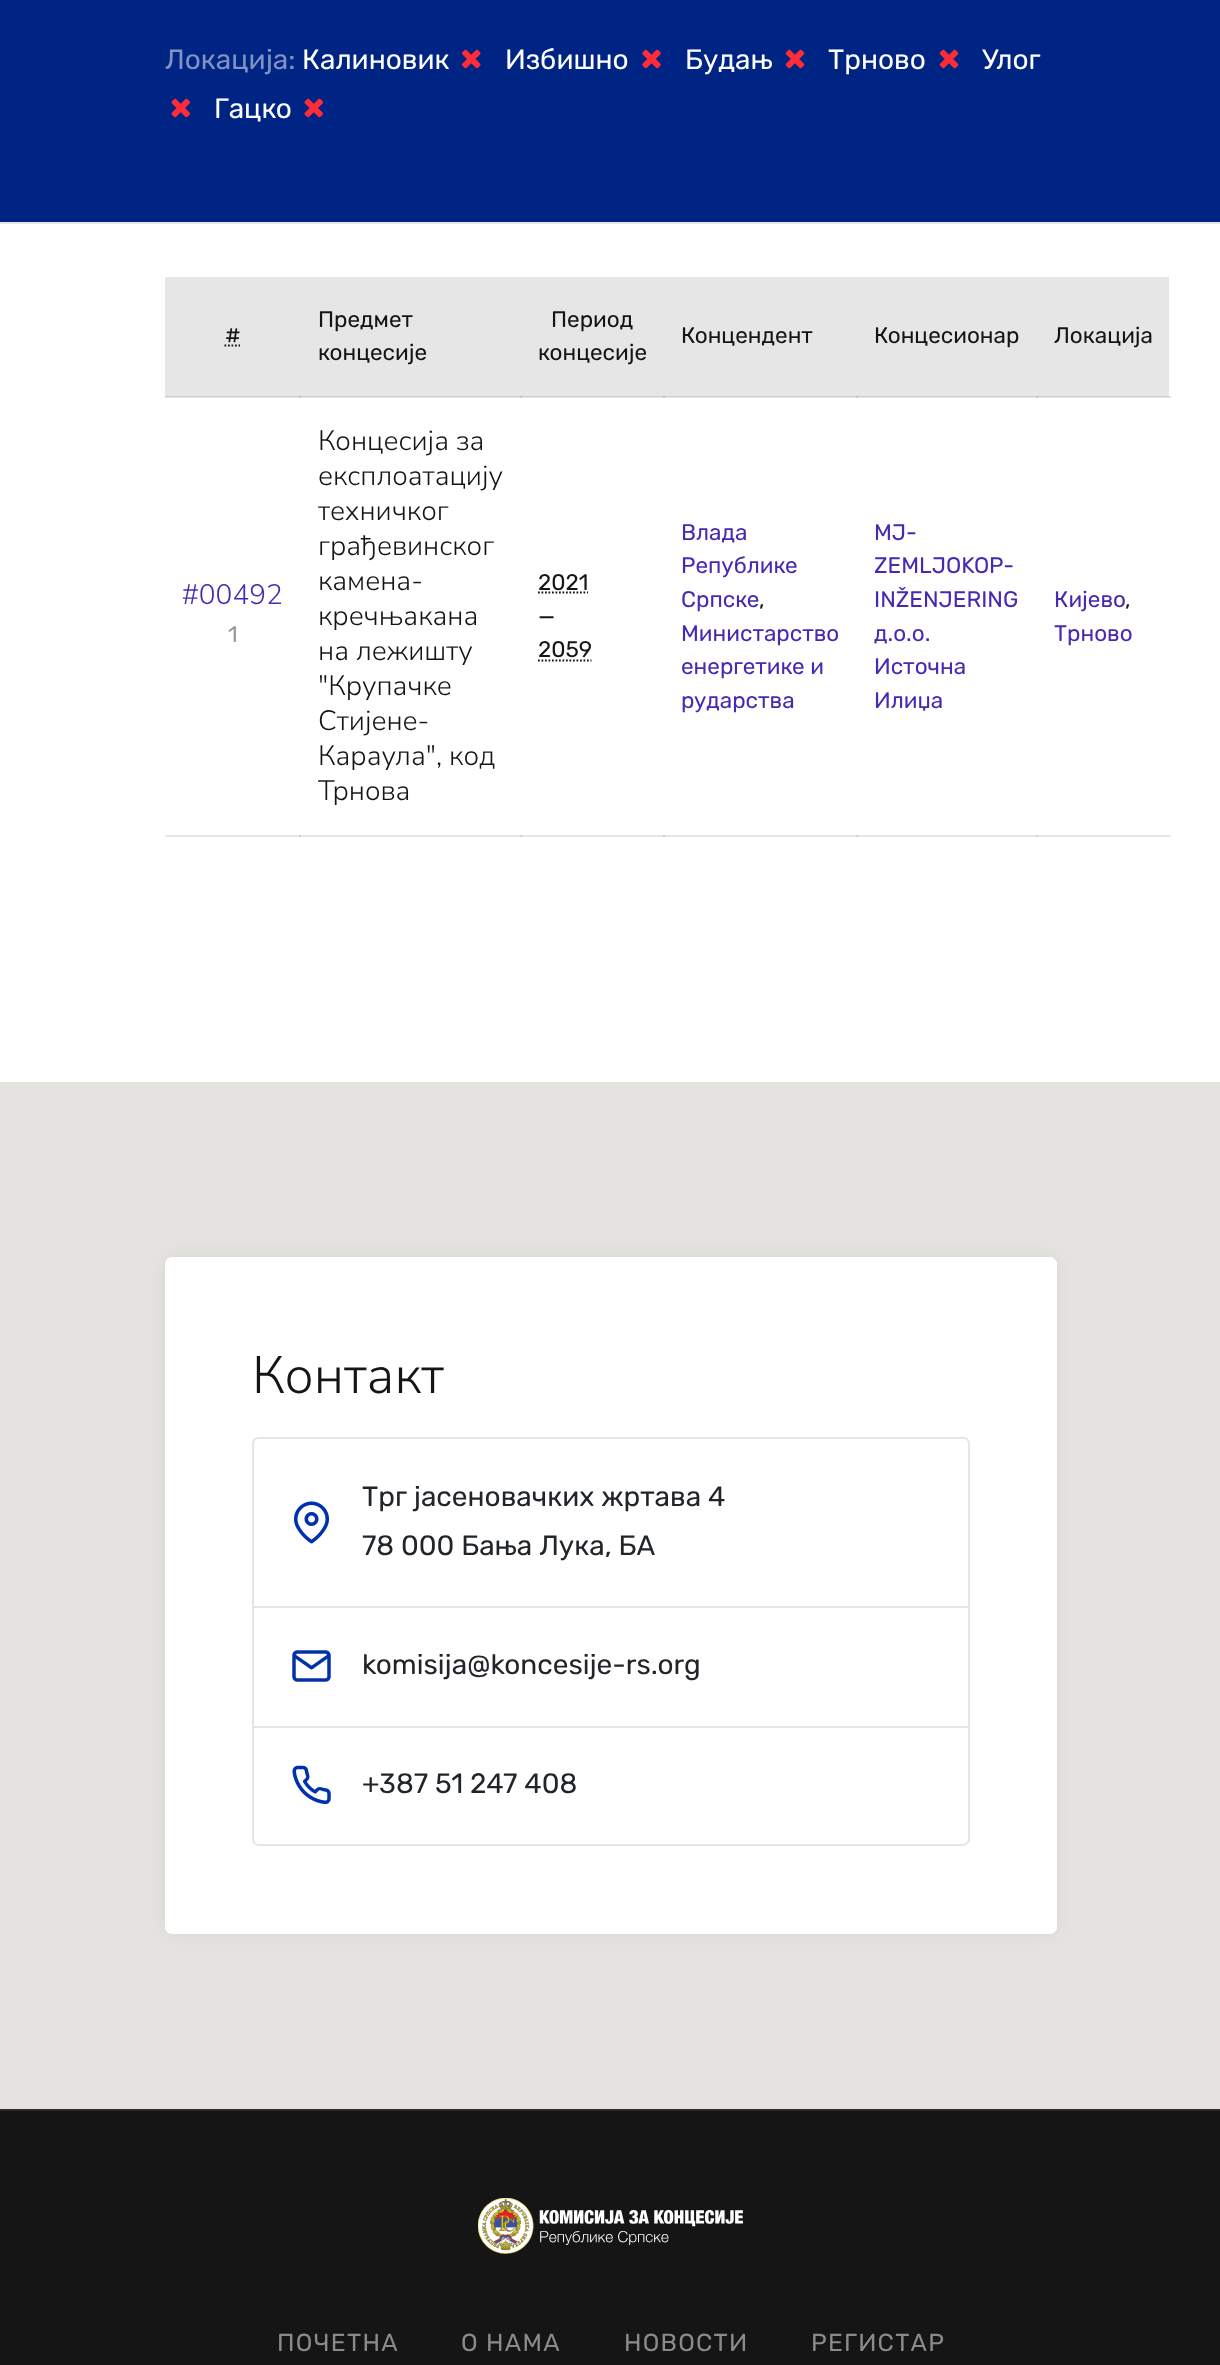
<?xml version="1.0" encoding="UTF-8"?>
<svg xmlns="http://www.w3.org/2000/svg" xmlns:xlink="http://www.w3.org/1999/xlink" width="1220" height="2365">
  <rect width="100%" height="100%" fill="#ffffff" />
  <rect x="165" y="397" width="873" height="1" fill="#e6e6e6" />
  <rect x="299" y="397" width="2" height="1" fill="#cfcfcf" />
  <rect x="520" y="397" width="2" height="1" fill="#cfcfcf" />
  <rect x="663" y="397" width="2" height="1" fill="#cfcfcf" />
  <rect x="856" y="397" width="2" height="1" fill="#cfcfcf" />
  <rect x="1036" y="396" width="135" height="2" fill="#e6e6e6" />
  <rect x="1036" y="397" width="2" height="1" fill="#cfcfcf" />
  <rect x="165" y="835" width="1006" height="2" fill="#e6e6e6" />
  <rect x="299" y="835" width="2" height="2" fill="#cfcfcf" />
  <rect x="520" y="835" width="2" height="2" fill="#cfcfcf" />
  <rect x="663" y="835" width="2" height="2" fill="#cfcfcf" />
  <rect x="856" y="835" width="2" height="2" fill="#cfcfcf" />
  <rect y="222" width="1220" height="2" fill="#e5e5e5" />
  <rect width="1220" height="222" fill="#002483" />
  <image x="462" y="49" width="19" height="20" xlink:href="image1.png" />
  <image x="642" y="49" width="19" height="20" xlink:href="image2.png" />
  <image x="785" y="49" width="20" height="20" xlink:href="image3.png" />
  <image x="939" y="49" width="20" height="20" xlink:href="image3.png" />
  <image x="171" y="98" width="19" height="20" xlink:href="image4.png" />
  <image x="304" y="98" width="19" height="20" xlink:href="image4.png" />
  <rect x="165" y="277" width="1004" height="119" fill="#e6e6e6" />
  <rect x="165" y="396" width="1004" height="1" fill="#cfcfcf" />
  <rect x="299" y="396" width="2" height="1" fill="#bababa" />
  <path d="M 224.5 345.5 h 15.5" fill="none" stroke="#151515" stroke-width="1.8" stroke-dasharray="1.75 1.75" />
  <rect x="520" y="396" width="2" height="1" fill="#bababa" />
  <rect x="663" y="396" width="2" height="1" fill="#bababa" />
  <rect x="856" y="396" width="2" height="1" fill="#bababa" />
  <rect x="1036" y="396" width="2" height="1" fill="#bababa" />
  <path d="M 538 592.5 h 50" fill="none" stroke="#151515" stroke-width="1.8" stroke-dasharray="1.75 1.75" />
  <path d="M 538 660.5 h 53.5" fill="none" stroke="#151515" stroke-width="1.8" stroke-dasharray="1.75 1.75" />
  <rect x="1036" y="835" width="2" height="2" fill="#cfcfcf" />
  <rect y="1082" width="1220" height="1027" fill="#e5e3df" />
  <rect x="165" y="1257" width="892" height="677" rx="7" fill="#000000" fill-opacity="0.05" filter="blur(9px)" />
  <rect x="165" y="1257" width="892" height="677" rx="7" fill="#ffffff" />
  <path d="M 259 1438 h 704 c 3.5 0 6 2.5 6 6 v 163 h -716 v -163 c 0 -3.5 2.5 -6 6 -6 z" fill="none" stroke="#e5e5e5" stroke-width="2" />
  <image x="294" y="1501" width="35" height="43" xlink:href="image5.png" />
  <rect x="968" y="1607" width="2" height="120" fill="#e5e5e5" />
  <rect x="252" y="1726" width="718" height="2" fill="#e5e5e5" />
  <rect x="252" y="1607" width="2" height="120" fill="#e5e5e5" />
  <image x="292" y="1650" width="39" height="32" xlink:href="image6.png" />
  <path d="M 252 1726 h 718 v 113 c 0 4 -4 7 -8 7 h -703 c -4 0 -7 -3 -7 -7 z m 2 0 h 714 v 113 c 0 3 -3 5 -6 5 h -703 c -3 0 -5 -2 -5 -5 z" fill="#e5e5e5" fill-rule="evenodd" />
  <image x="292" y="1765" width="39" height="40" xlink:href="image7.png" />
  <rect y="2111" width="1220" height="254" fill="#151515" />
  <rect y="2109" width="1220" height="2" fill="#2c2c2c" />
  <image x="478" y="2198" width="266" height="56" xlink:href="image8.png" />
  <text x="165" y="69" style="font-family: Rubik; font-size: 28px; fill: #8092c1">Локација:</text>
  <text x="302" y="69" style="font-family: Rubik; font-size: 28px; fill: #ffffff">Калиновик</text>
  <text x="505" y="69" style="font-family: Rubik; font-size: 28px; fill: #ffffff">Избишно</text>
  <text x="685" y="69" style="font-family: Rubik; font-size: 28px; fill: #ffffff">Будањ</text>
  <text x="828" y="69" style="font-family: Rubik; font-size: 28px; fill: #ffffff">Трново</text>
  <text x="982" y="69" style="font-family: Rubik; font-size: 28px; fill: #ffffff">Улог</text>
  <text x="214" y="118" style="font-family: Rubik; font-size: 28px; fill: #ffffff">Гацко</text>
  <text x="225" y="343" style="font-family: Rubik; font-size: 22.5px; fill: #151515">#</text>
  <text x="318" y="327" style="font-family: Rubik; font-size: 22.5px; fill: #151515">Предмет</text>
  <text x="318" y="360" style="font-family: Rubik; font-size: 22.5px; fill: #151515">концесије</text>
  <text x="551" y="327" style="font-family: Rubik; font-size: 22.5px; fill: #151515">Период</text>
  <text x="538" y="360" style="font-family: Rubik; font-size: 22.5px; fill: #151515">концесије</text>
  <text x="681" y="343" style="font-family: Rubik; font-size: 22.5px; fill: #151515">Концендент</text>
  <text x="874" y="343" style="font-family: Rubik; font-size: 22.5px; fill: #151515">Концесионар</text>
  <text x="1054" y="343" style="font-family: Rubik; font-size: 22.5px; fill: #151515">Локација</text>
  <text x="182" y="604" style="font-family: Nunito Sans; font-size: 28px; font-weight: 300; fill: #4829b2">#00492</text>
  <text x="228" y="642" style="font-family: Rubik; font-size: 22.5px; fill: #999999">1</text>
  <text x="318" y="450" style="font-family: Nunito Sans; font-size: 28px; font-weight: 300; fill: #151515">Концесија за</text>
  <text x="318" y="485" style="font-family: Nunito Sans; font-size: 28px; font-weight: 300; fill: #151515">експлоатацију</text>
  <text x="318" y="520" style="font-family: Nunito Sans; font-size: 28px; font-weight: 300; fill: #151515">техничког</text>
  <text x="318" y="555" style="font-family: Nunito Sans; font-size: 28px; font-weight: 300; fill: #151515">грађевинског</text>
  <text x="318" y="590" style="font-family: Nunito Sans; font-size: 28px; font-weight: 300; fill: #151515">камена-</text>
  <text x="318" y="625" style="font-family: Nunito Sans; font-size: 28px; font-weight: 300; fill: #151515">кречњакана</text>
  <text x="318" y="660" style="font-family: Nunito Sans; font-size: 28px; font-weight: 300; fill: #151515">на лежишту</text>
  <text x="318" y="695" style="font-family: Nunito Sans; font-size: 28px; font-weight: 300; fill: #151515">"Крупачке</text>
  <text x="318" y="730" style="font-family: Nunito Sans; font-size: 28px; font-weight: 300; fill: #151515">Стијене-</text>
  <text x="318" y="765" style="font-family: Nunito Sans; font-size: 28px; font-weight: 300; fill: #151515">Караула", код</text>
  <text x="318" y="800" style="font-family: Nunito Sans; font-size: 28px; font-weight: 300; fill: #151515">Трнова</text>
  <text x="538" y="590" style="font-family: Rubik; font-size: 22.5px; fill: #151515">2021</text>
  <text x="538" y="624" style="font-family: Rubik; font-size: 22.5px; fill: #151515">—</text>
  <text x="538" y="657" style="font-family: Rubik; font-size: 22.5px; fill: #151515">2059</text>
  <text x="681" y="540" style="font-family: Rubik; font-size: 22.5px; fill: #4829b2">Влада</text>
  <text x="681" y="573" style="font-family: Rubik; font-size: 22.5px; fill: #4829b2">Републике</text>
  <text x="681" y="607" style="font-family: Rubik; font-size: 22.5px; fill: #4829b2">Српске</text>
  <text x="759" y="607" style="font-family: Rubik; font-size: 22.5px; fill: #151515">,</text>
  <text x="681" y="641" style="font-family: Rubik; font-size: 22.5px; fill: #4829b2">Министарство</text>
  <text x="681" y="674" style="font-family: Rubik; font-size: 22.5px; fill: #4829b2">енергетике и</text>
  <text x="681" y="708" style="font-family: Rubik; font-size: 22.5px; fill: #4829b2">рударства</text>
  <text x="874" y="540" style="font-family: Rubik; font-size: 22.5px; fill: #4829b2">MJ-</text>
  <text x="874" y="573" style="font-family: Rubik; font-size: 22.5px; fill: #4829b2">ZEMLJOKOP-</text>
  <text x="874" y="607" style="font-family: Rubik; font-size: 22.5px; fill: #4829b2">INŽENJERING</text>
  <text x="874" y="641" style="font-family: Rubik; font-size: 22.5px; fill: #4829b2">д.о.о.</text>
  <text x="874" y="674" style="font-family: Rubik; font-size: 22.5px; fill: #4829b2">Источна</text>
  <text x="874" y="708" style="font-family: Rubik; font-size: 22.5px; fill: #4829b2">Илиџа</text>
  <text x="1054" y="607" style="font-family: Rubik; font-size: 22.5px; fill: #4829b2">Кијево</text>
  <text x="1125" y="607" style="font-family: Rubik; font-size: 22.5px; fill: #151515">,</text>
  <text x="1054" y="641" style="font-family: Rubik; font-size: 22.5px; fill: #4829b2">Трново</text>
  <text x="252" y="1393" style="font-family: Nunito Sans; font-size: 52.5px; font-weight: 300; fill: #151515">Контакт</text>
  <text x="362" y="1506" style="font-family: Rubik; font-size: 28px; fill: #212529">Трг јасеновачких жртава 4</text>
  <text x="362" y="1555" style="font-family: Rubik; font-size: 28px; fill: #212529">78 000 Бања Лука, БА</text>
  <text x="362" y="1674" style="font-family: Rubik; font-size: 28px; fill: #212529">komisija@koncesije-rs.org</text>
  <text x="362" y="1793" style="font-family: Rubik; font-size: 28px; fill: #212529">+387 51 247 408</text>
  <text x="277" y="2351" style="font-family: Rubik; font-size: 24.5px; letter-spacing: 1.25px; fill: #8a8a8a">ПОЧЕТНА</text>
  <text x="461" y="2351" style="font-family: Rubik; font-size: 24.5px; letter-spacing: 1.25px; fill: #8a8a8a">O НАМА</text>
  <text x="624" y="2351" style="font-family: Rubik; font-size: 24.5px; letter-spacing: 1.25px; fill: #8a8a8a">НОВОСТИ</text>
  <text x="811" y="2351" style="font-family: Rubik; font-size: 24.5px; letter-spacing: 1.25px; fill: #8a8a8a">РЕГИСТАР</text>
</svg>
